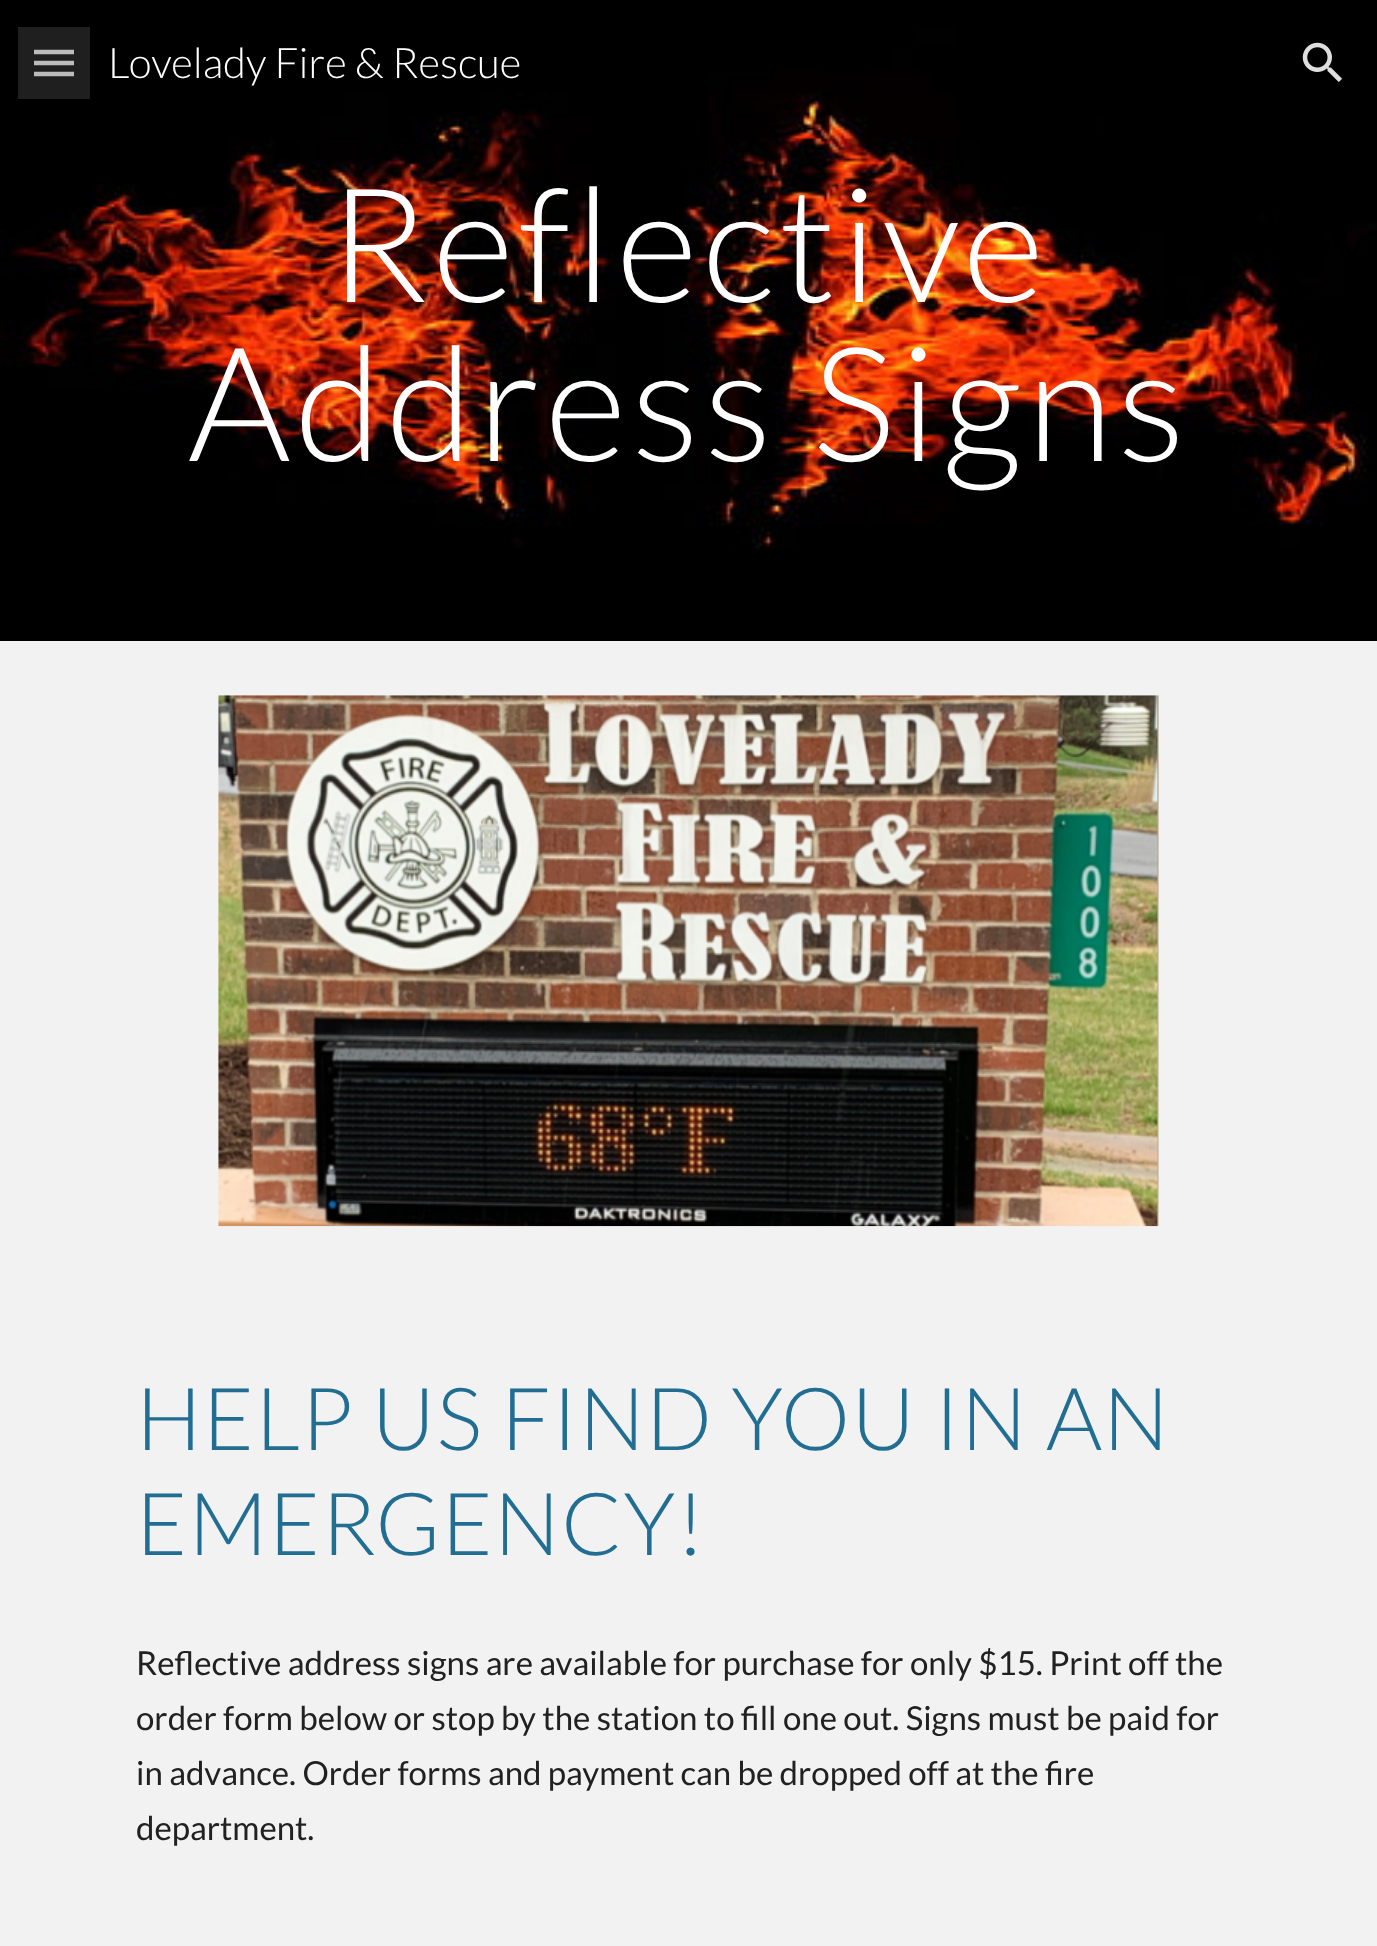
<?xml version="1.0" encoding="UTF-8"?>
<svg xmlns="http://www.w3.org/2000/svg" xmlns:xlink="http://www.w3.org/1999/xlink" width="1377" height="1946">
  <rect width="100%" height="100%" fill="#ffffff" />
  <image x="0" y="0" width="1377" height="641" xlink:href="image2.png" />
  <path d="M 34 52 h 40 m -40 11 h 40 m -40 11 h 40" fill="none" stroke="#b2b2b2" stroke-width="4.5" />
  <rect x="18" y="27" width="72" height="72" fill="#ffffff" fill-opacity="0.12" />
  <image x="1302" y="42" width="40" height="40" xlink:href="image1.png" />
  <rect y="641" width="1377" height="1305" fill="#f2f2f2" />
  <image x="218" y="695" width="941" height="532" xlink:href="image3.png" />
  <text x="108" y="78" style="font-family: Lato; font-size: 42px; font-weight: 300; fill: #ffffff">Lovelady Fire &amp; Rescue</text>
  <text x="328" y="302" style="font-family: Lato; font-size: 159px; font-weight: 300; letter-spacing: 4.5px; fill: #ffffff">Reflective</text>
  <text x="188" y="461" style="font-family: Lato; font-size: 159px; font-weight: 300; letter-spacing: 4.5px; fill: #ffffff">Address Signs</text>
  <text x="136" y="1450" style="font-family: Lato; font-size: 87px; font-weight: 300; letter-spacing: 1.1px; fill: #226e93">HELP US FIND YOU IN AN</text>
  <text x="136" y="1555" style="font-family: Lato; font-size: 87px; font-weight: 300; letter-spacing: 1.1px; fill: #226e93">EMERGENCY!</text>
  <text x="136" y="1675" style="font-family: Lato; font-size: 33px; fill: #212121">Reflective address signs are available for purchase for only $15. Print off the</text>
  <text x="136" y="1730" style="font-family: Lato; font-size: 33px; fill: #212121">order form below or stop by the station to fill one out. Signs must be paid for</text>
  <text x="136" y="1785" style="font-family: Lato; font-size: 33px; fill: #212121">in advance. Order forms and payment can be dropped off at the fire</text>
  <text x="136" y="1840" style="font-family: Lato; font-size: 33px; fill: #212121">department.</text>
</svg>
